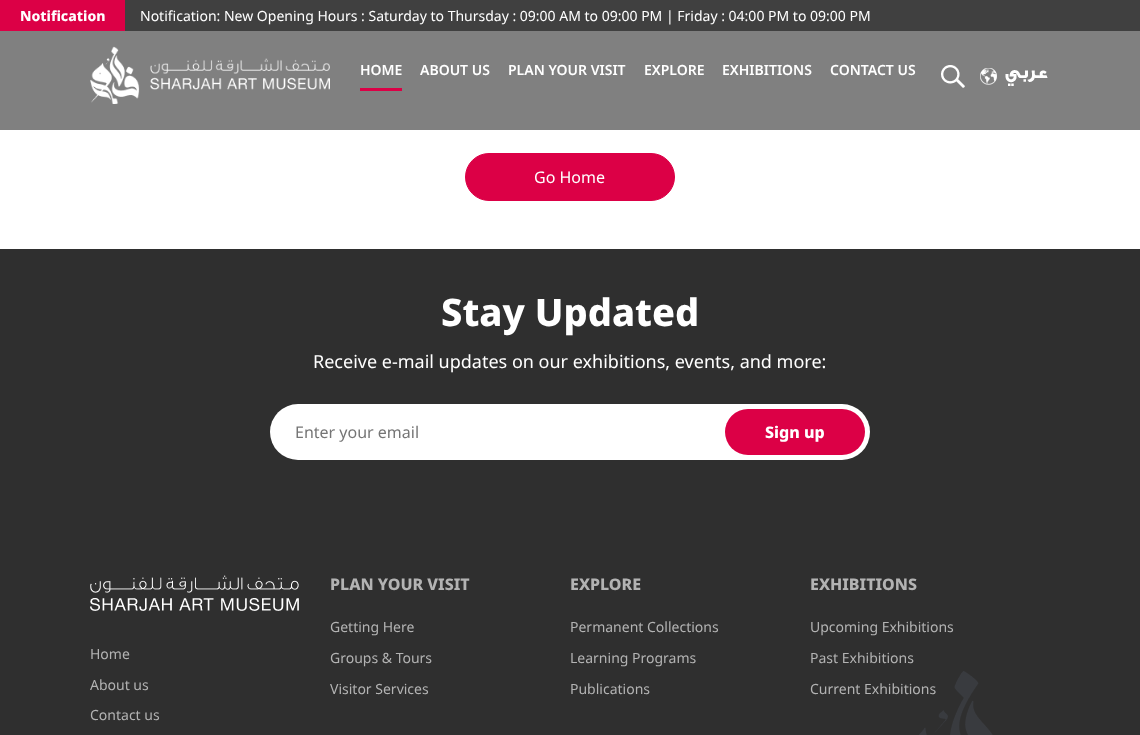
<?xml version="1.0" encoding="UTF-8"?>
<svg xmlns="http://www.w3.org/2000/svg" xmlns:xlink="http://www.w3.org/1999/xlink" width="1140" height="735">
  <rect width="100%" height="100%" fill="#808080" />
  <rect x="125" width="1015" height="31" fill="#404040" />
  <rect width="125" height="31" fill="#dc0046" />
  <image x="90" y="46" width="240" height="58" xlink:href="image1.png" />
  <rect x="360" y="88" width="42" height="3" fill="#dc0046" />
  <image x="941" y="65" width="24" height="23" xlink:href="image2.png" />
  <image x="980" y="68" width="68" height="18" xlink:href="image3.png" />
  <rect y="130" width="1140" height="119" fill="#ffffff" />
  <rect x="465.5" y="153.5" width="209" height="47" rx="23.5" fill="#dc0046" stroke="#dc0046" />
  <rect y="249" width="1140" height="486" fill="#2f2f2f" />
  <image x="919" y="671" width="74" height="64" xlink:href="image4.png" />
  <rect x="270" y="404" width="600" height="56" rx="28" fill="#ffffff" />
  <rect x="725" y="409" width="140" height="46" rx="23" fill="#dc0046" />
  <image x="90" y="575" width="209" height="36" xlink:href="image5.png" />
  <text x="20" y="21" style="font-family: Noto Sans; font-size: 14px; font-weight: 800; fill: #ffffff">Notification</text>
  <text x="140" y="21" style="font-family: Noto Sans; font-size: 14px; fill: #ffffff">Notification: New Opening Hours : Saturday to Thursday : 09:00 AM to 09:00 PM | Friday : 04:00 PM to 09:00 PM</text>
  <text x="360" y="75" style="font-family: Noto Sans; font-size: 14px; font-weight: 600; fill: #ffffff">HOME</text>
  <text x="420" y="75" style="font-family: Noto Sans; font-size: 14px; font-weight: 600; fill: #ffffff">ABOUT US</text>
  <text x="508" y="75" style="font-family: Noto Sans; font-size: 14px; font-weight: 600; fill: #ffffff">PLAN YOUR VISIT</text>
  <text x="644" y="75" style="font-family: Noto Sans; font-size: 14px; font-weight: 600; fill: #ffffff">EXPLORE</text>
  <text x="722" y="75" style="font-family: Noto Sans; font-size: 14px; font-weight: 600; fill: #ffffff">EXHIBITIONS</text>
  <text x="830" y="75" style="font-family: Noto Sans; font-size: 14px; font-weight: 600; fill: #ffffff">CONTACT US</text>
  <text x="534" y="183" style="font-family: Noto Sans; font-size: 16px; fill: #ffffff">Go Home</text>
  <text x="441" y="326" style="font-family: Noto Sans; font-size: 38px; font-weight: 800; fill: #ffffff">Stay Updated</text>
  <text x="313" y="368" style="font-family: Noto Sans; font-size: 18px; fill: #ffffff">Receive e-mail updates on our exhibitions, events, and more:</text>
  <text x="295" y="438" style="font-family: Noto Sans; font-size: 16px; fill: #757575">Enter your email</text>
  <text x="765" y="438" style="font-family: Noto Sans; font-size: 16px; font-weight: 800; fill: #ffffff">Sign up</text>
  <text x="90" y="659" style="font-family: Noto Sans; font-size: 14px; fill: #b3b3b3">Home</text>
  <text x="90" y="690" style="font-family: Noto Sans; font-size: 14px; fill: #b3b3b3">About us</text>
  <text x="90" y="720" style="font-family: Noto Sans; font-size: 14px; fill: #b3b3b3">Contact us</text>
  <text x="330" y="590" style="font-family: Noto Sans; font-size: 16px; font-weight: 800; fill: #b3b3b3">PLAN YOUR VISIT</text>
  <text x="330" y="632" style="font-family: Noto Sans; font-size: 14px; fill: #b3b3b3">Getting Here</text>
  <text x="330" y="663" style="font-family: Noto Sans; font-size: 14px; fill: #b3b3b3">Groups &amp; Tours</text>
  <text x="330" y="694" style="font-family: Noto Sans; font-size: 14px; fill: #b3b3b3">Visitor Services</text>
  <text x="570" y="590" style="font-family: Noto Sans; font-size: 16px; font-weight: 800; fill: #b3b3b3">EXPLORE</text>
  <text x="570" y="632" style="font-family: Noto Sans; font-size: 14px; fill: #b3b3b3">Permanent Collections</text>
  <text x="570" y="663" style="font-family: Noto Sans; font-size: 14px; fill: #b3b3b3">Learning Programs</text>
  <text x="570" y="694" style="font-family: Noto Sans; font-size: 14px; fill: #b3b3b3">Publications</text>
  <text x="810" y="590" style="font-family: Noto Sans; font-size: 16px; font-weight: 800; fill: #b3b3b3">EXHIBITIONS</text>
  <text x="810" y="632" style="font-family: Noto Sans; font-size: 14px; fill: #b3b3b3">Upcoming Exhibitions</text>
  <text x="810" y="663" style="font-family: Noto Sans; font-size: 14px; fill: #b3b3b3">Past Exhibitions</text>
  <text x="810" y="694" style="font-family: Noto Sans; font-size: 14px; fill: #b3b3b3">Current Exhibitions</text>
</svg>
